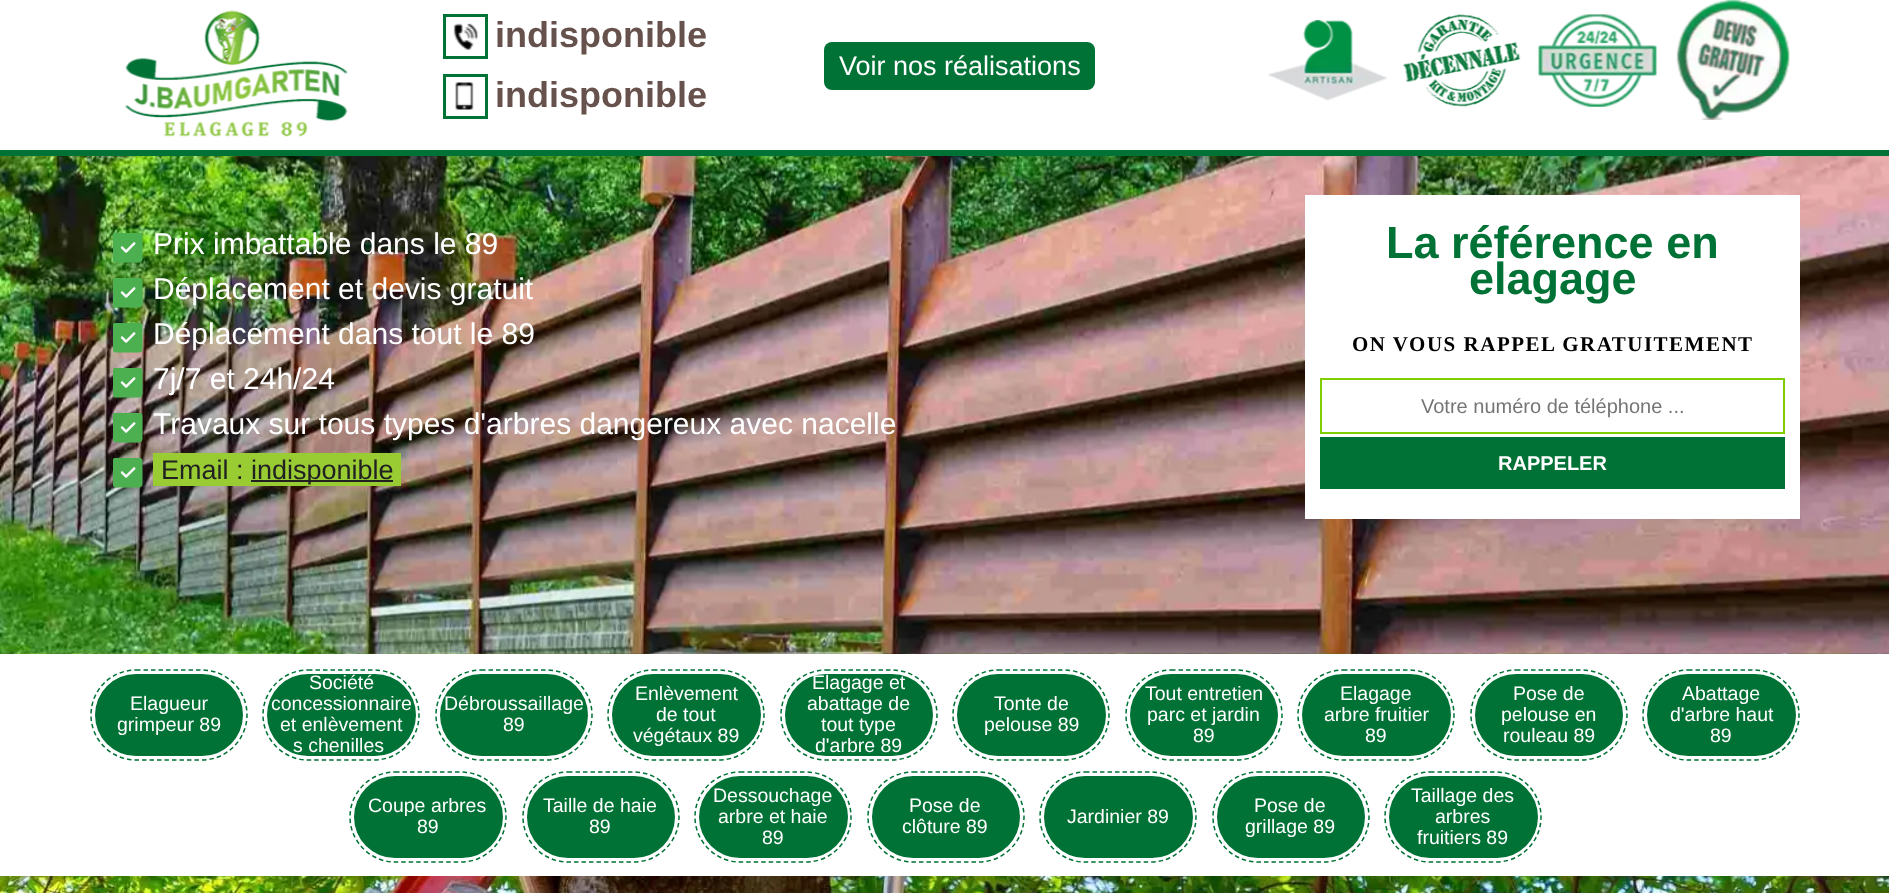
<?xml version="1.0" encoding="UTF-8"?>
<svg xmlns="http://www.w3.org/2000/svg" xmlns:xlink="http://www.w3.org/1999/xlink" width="1889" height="893">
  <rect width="100%" height="100%" fill="#ffffff" />
  <image x="0" y="653" width="1889" height="240" xlink:href="image1.png" />
  <image x="125" y="10" width="223" height="127" xlink:href="image2.png" />
  <rect x="444.5" y="15.5" width="42" height="42" fill="none" stroke="#007236" stroke-width="3" />
  <image x="453" y="23" width="25" height="27" xlink:href="image3.png" />
  <rect x="444.5" y="75.5" width="42" height="42" fill="none" stroke="#007236" stroke-width="3" />
  <image x="455" y="82" width="19" height="28" xlink:href="image4.png" />
  <rect x="824" y="42" width="271" height="48" rx="8" fill="#007236" />
  <image x="1268" y="20" width="120" height="81" xlink:href="image5.png" />
  <image x="1403" y="14" width="118" height="93" xlink:href="image6.png" />
  <image x="1538" y="14" width="119" height="93" xlink:href="image7.png" />
  <image x="1676" y="0" width="114" height="120" xlink:href="image8.png" />
  <rect y="150" width="1889" height="6" fill="#007236" />
  <image x="0" y="156" width="1889" height="498" xlink:href="image9.png" />
  <image x="113" y="233" width="30" height="30" xlink:href="image10.png" />
  <image x="113" y="278" width="30" height="30" xlink:href="image11.png" />
  <image x="113" y="323" width="30" height="30" xlink:href="image12.png" />
  <image x="113" y="368" width="30" height="30" xlink:href="image13.png" />
  <image x="113" y="413" width="30" height="30" xlink:href="image14.png" />
  <image x="113" y="458" width="30" height="30" xlink:href="image15.png" />
  <rect x="153" y="453" width="248" height="33" fill="#99cc33" />
  <rect x="251" y="480" width="142" height="2" fill="#212121" />
  <rect x="1305" y="195" width="495" height="324" fill="#ffffff" />
  <rect x="1321" y="379" width="463" height="54" fill="none" stroke="#80ce00" stroke-width="2" />
  <rect x="1320" y="437" width="465" height="52" fill="#007236" />
  <rect y="654" width="1889" height="222" fill="#ffffff" />
  <path d="M 136 670 h 66 c 24.5 0 45 20 45 45 c 0 24.5 -20.5 45 -45 45 h -66 c -25 0 -45 -20.5 -45 -45 c 0 -25 20 -45 45 -45 z" fill="none" stroke="#007236" stroke-width="1.5" stroke-dasharray="4.5 3" />
  <rect x="95" y="674" width="148" height="82" rx="41" fill="#007236" />
  <path d="M 308 670 h 66 c 25 0 45 20 45 45 c 0 24.5 -20 45 -45 45 h -66 c -24.5 0 -45 -20.5 -45 -45 c 0 -25 20.5 -45 45 -45 z" fill="none" stroke="#007236" stroke-width="1.5" stroke-dasharray="4.5 3" />
  <rect x="267" y="674" width="149" height="82" rx="41" fill="#007236" />
  <path d="M 481 670 h 66 c 24.5 0 45 20 45 45 c 0 24.5 -20.5 45 -45 45 h -66 c -25 0 -45 -20.5 -45 -45 c 0 -25 20 -45 45 -45 z" fill="none" stroke="#007236" stroke-width="1.5" stroke-dasharray="4.5 3" />
  <rect x="440" y="674" width="148" height="82" rx="41" fill="#007236" />
  <path d="M 653 670 h 66 c 25 0 45 20 45 45 c 0 24.5 -20 45 -45 45 h -66 c -24.5 0 -45 -20.5 -45 -45 c 0 -25 20.5 -45 45 -45 z" fill="none" stroke="#007236" stroke-width="1.5" stroke-dasharray="4.5 3" />
  <rect x="612" y="674" width="149" height="82" rx="41" fill="#007236" />
  <path d="M 826 670 h 66 c 24.5 0 45 20 45 45 c 0 24.5 -20.5 45 -45 45 h -66 c -25 0 -45 -20.5 -45 -45 c 0 -25 20 -45 45 -45 z" fill="none" stroke="#007236" stroke-width="1.5" stroke-dasharray="4.5 3" />
  <rect x="785" y="674" width="148" height="82" rx="41" fill="#007236" />
  <path d="M 998 670 h 66 c 25 0 45 20 45 45 c 0 24.5 -20 45 -45 45 h -66 c -24.5 0 -45 -20.5 -45 -45 c 0 -25 20.5 -45 45 -45 z" fill="none" stroke="#007236" stroke-width="1.5" stroke-dasharray="4.5 3" />
  <rect x="957" y="674" width="149" height="82" rx="41" fill="#007236" />
  <path d="M 1171 670 h 66 c 24.5 0 45 20 45 45 c 0 24.5 -20.5 45 -45 45 h -66 c -25 0 -45 -20.5 -45 -45 c 0 -25 20 -45 45 -45 z" fill="none" stroke="#007236" stroke-width="1.5" stroke-dasharray="4.5 3" />
  <rect x="1130" y="674" width="148" height="82" rx="41" fill="#007236" />
  <path d="M 1343 670 h 66 c 25 0 45 20 45 45 c 0 24.5 -20 45 -45 45 h -66 c -24.5 0 -45 -20.5 -45 -45 c 0 -25 20.5 -45 45 -45 z" fill="none" stroke="#007236" stroke-width="1.5" stroke-dasharray="4.5 3" />
  <rect x="1302" y="674" width="149" height="82" rx="41" fill="#007236" />
  <path d="M 1516 670 h 66 c 24.5 0 45 20 45 45 c 0 24.5 -20.5 45 -45 45 h -66 c -25 0 -45 -20.5 -45 -45 c 0 -25 20 -45 45 -45 z" fill="none" stroke="#007236" stroke-width="1.5" stroke-dasharray="4.5 3" />
  <rect x="1475" y="674" width="148" height="82" rx="41" fill="#007236" />
  <path d="M 1688 670 h 66 c 25 0 45 20 45 45 c 0 24.5 -20 45 -45 45 h -66 c -24.5 0 -45 -20.5 -45 -45 c 0 -25 20.5 -45 45 -45 z" fill="none" stroke="#007236" stroke-width="1.5" stroke-dasharray="4.5 3" />
  <rect x="1647" y="674" width="149" height="82" rx="41" fill="#007236" />
  <path d="M 395 772 h 66 c 25 0 45 20 45 45 c 0 24.5 -20 45 -45 45 h -66 c -24.5 0 -45 -20.5 -45 -45 c 0 -25 20.5 -45 45 -45 z" fill="none" stroke="#007236" stroke-width="1.5" stroke-dasharray="4.5 3" />
  <rect x="354" y="776" width="149" height="82" rx="41" fill="#007236" />
  <path d="M 568 772 h 66 c 24.5 0 45 20 45 45 c 0 24.5 -20.5 45 -45 45 h -66 c -25 0 -45 -20.5 -45 -45 c 0 -25 20 -45 45 -45 z" fill="none" stroke="#007236" stroke-width="1.5" stroke-dasharray="4.5 3" />
  <rect x="527" y="776" width="148" height="82" rx="41" fill="#007236" />
  <path d="M 740 772 h 66 c 25 0 45 20 45 45 c 0 24.5 -20 45 -45 45 h -66 c -24.5 0 -45 -20.5 -45 -45 c 0 -25 20.5 -45 45 -45 z" fill="none" stroke="#007236" stroke-width="1.5" stroke-dasharray="4.5 3" />
  <rect x="699" y="776" width="149" height="82" rx="41" fill="#007236" />
  <path d="M 913 772 h 66 c 24.5 0 45 20 45 45 c 0 24.5 -20.5 45 -45 45 h -66 c -25 0 -45 -20.5 -45 -45 c 0 -25 20 -45 45 -45 z" fill="none" stroke="#007236" stroke-width="1.5" stroke-dasharray="4.5 3" />
  <rect x="872" y="776" width="148" height="82" rx="41" fill="#007236" />
  <path d="M 1085 772 h 66 c 25 0 45 20 45 45 c 0 24.5 -20 45 -45 45 h -66 c -24.5 0 -45 -20.5 -45 -45 c 0 -25 20.5 -45 45 -45 z" fill="none" stroke="#007236" stroke-width="1.5" stroke-dasharray="4.5 3" />
  <rect x="1044" y="776" width="149" height="82" rx="41" fill="#007236" />
  <path d="M 1258 772 h 66 c 24.5 0 45 20 45 45 c 0 24.5 -20.5 45 -45 45 h -66 c -25 0 -45 -20.5 -45 -45 c 0 -25 20 -45 45 -45 z" fill="none" stroke="#007236" stroke-width="1.5" stroke-dasharray="4.5 3" />
  <rect x="1217" y="776" width="148" height="82" rx="41" fill="#007236" />
  <path d="M 1430 772 h 66 c 25 0 45 20 45 45 c 0 24.5 -20 45 -45 45 h -66 c -24.5 0 -45 -20.5 -45 -45 c 0 -25 20.5 -45 45 -45 z" fill="none" stroke="#007236" stroke-width="1.5" stroke-dasharray="4.5 3" />
  <rect x="1389" y="776" width="149" height="82" rx="41" fill="#007236" />
  <text x="495" y="47" style="font-family: Liberation Sans; font-size: 36px; font-weight: bold; fill: #66514c">indisponible</text>
  <text x="495" y="107" style="font-family: Liberation Sans; font-size: 36px; font-weight: bold; fill: #66514c">indisponible</text>
  <text x="839" y="75" style="font-family: Liberation Sans; font-size: 27px; fill: #ffffff">Voir nos réalisations</text>
  <text x="153" y="254" style="font-family: Liberation Sans; font-size: 30px; fill: #ffffff">Prix imbattable dans le 89</text>
  <text x="153" y="299" style="font-family: Liberation Sans; font-size: 30px; fill: #ffffff">Déplacement et devis gratuit</text>
  <text x="153" y="344" style="font-family: Liberation Sans; font-size: 30px; fill: #ffffff">Déplacement dans tout le 89</text>
  <text x="153" y="389" style="font-family: Liberation Sans; font-size: 30px; fill: #ffffff">7j/7 et 24h/24</text>
  <text x="153" y="434" style="font-family: Liberation Sans; font-size: 30px; fill: #ffffff">Travaux sur tous types d'arbres dangereux avec nacelle</text>
  <text x="161" y="479" style="font-family: Liberation Sans; font-size: 27px; fill: #212121">Email :</text>
  <text x="251" y="479" style="font-family: Liberation Sans; font-size: 27px; fill: #212121">indisponible</text>
  <text x="1386" y="258" style="font-family: Liberation Sans; font-size: 45px; font-weight: bold; fill: #007236">La référence en</text>
  <text x="1469" y="294" style="font-family: Liberation Sans; font-size: 45px; font-weight: bold; fill: #007236">elagage</text>
  <text x="1352" y="351" style="font-family: Liberation Serif; font-size: 21px; font-weight: bold; letter-spacing: 1.5px; fill: #000000">ON VOUS RAPPEL GRATUITEMENT</text>
  <text x="1421" y="413" style="font-family: Liberation Sans; font-size: 20px; fill: #757575">Votre numéro de téléphone ...</text>
  <text x="1498" y="470" style="font-family: Liberation Sans; font-size: 20px; font-weight: bold; fill: #ffffff">RAPPELER</text>
  <text x="130" y="710" style="font-family: Liberation Sans; font-size: 19.5px; fill: #ffffff">Elagueur</text>
  <text x="117" y="731" style="font-family: Liberation Sans; font-size: 19.5px; fill: #ffffff">grimpeur 89</text>
  <text x="309" y="689" style="font-family: Liberation Sans; font-size: 19.5px; fill: #ffffff">Société</text>
  <text x="271" y="710" style="font-family: Liberation Sans; font-size: 19.5px; fill: #ffffff">concessionnaire</text>
  <text x="280" y="731" style="font-family: Liberation Sans; font-size: 19.5px; fill: #ffffff">et enlèvement</text>
  <text x="293" y="752" style="font-family: Liberation Sans; font-size: 19.5px; fill: #ffffff">s chenilles</text>
  <text x="444" y="710" style="font-family: Liberation Sans; font-size: 19.5px; fill: #ffffff">Débroussaillage</text>
  <text x="503" y="731" style="font-family: Liberation Sans; font-size: 19.5px; fill: #ffffff">89</text>
  <text x="635" y="700" style="font-family: Liberation Sans; font-size: 19.5px; fill: #ffffff">Enlèvement</text>
  <text x="656" y="721" style="font-family: Liberation Sans; font-size: 19.5px; fill: #ffffff">de tout</text>
  <text x="633" y="742" style="font-family: Liberation Sans; font-size: 19.5px; fill: #ffffff">végétaux 89</text>
  <text x="812" y="689" style="font-family: Liberation Sans; font-size: 19.5px; fill: #ffffff">Elagage et</text>
  <text x="807" y="710" style="font-family: Liberation Sans; font-size: 19.5px; fill: #ffffff">abattage de</text>
  <text x="821" y="731" style="font-family: Liberation Sans; font-size: 19.5px; fill: #ffffff">tout type</text>
  <text x="815" y="752" style="font-family: Liberation Sans; font-size: 19.5px; fill: #ffffff">d'arbre 89</text>
  <text x="994" y="710" style="font-family: Liberation Sans; font-size: 19.5px; fill: #ffffff">Tonte de</text>
  <text x="984" y="731" style="font-family: Liberation Sans; font-size: 19.5px; fill: #ffffff">pelouse 89</text>
  <text x="1145" y="700" style="font-family: Liberation Sans; font-size: 19.5px; fill: #ffffff">Tout entretien</text>
  <text x="1147" y="721" style="font-family: Liberation Sans; font-size: 19.5px; fill: #ffffff">parc et jardin</text>
  <text x="1193" y="742" style="font-family: Liberation Sans; font-size: 19.5px; fill: #ffffff">89</text>
  <text x="1340" y="700" style="font-family: Liberation Sans; font-size: 19.5px; fill: #ffffff">Elagage</text>
  <text x="1324" y="721" style="font-family: Liberation Sans; font-size: 19.5px; fill: #ffffff">arbre fruitier</text>
  <text x="1365" y="742" style="font-family: Liberation Sans; font-size: 19.5px; fill: #ffffff">89</text>
  <text x="1513" y="700" style="font-family: Liberation Sans; font-size: 19.5px; fill: #ffffff">Pose de</text>
  <text x="1501" y="721" style="font-family: Liberation Sans; font-size: 19.5px; fill: #ffffff">pelouse en</text>
  <text x="1503" y="742" style="font-family: Liberation Sans; font-size: 19.5px; fill: #ffffff">rouleau 89</text>
  <text x="1682" y="700" style="font-family: Liberation Sans; font-size: 19.5px; fill: #ffffff">Abattage</text>
  <text x="1670" y="721" style="font-family: Liberation Sans; font-size: 19.5px; fill: #ffffff">d'arbre haut</text>
  <text x="1710" y="742" style="font-family: Liberation Sans; font-size: 19.5px; fill: #ffffff">89</text>
  <text x="368" y="812" style="font-family: Liberation Sans; font-size: 19.5px; fill: #ffffff">Coupe arbres</text>
  <text x="417" y="833" style="font-family: Liberation Sans; font-size: 19.5px; fill: #ffffff">89</text>
  <text x="543" y="812" style="font-family: Liberation Sans; font-size: 19.5px; fill: #ffffff">Taille de haie</text>
  <text x="589" y="833" style="font-family: Liberation Sans; font-size: 19.5px; fill: #ffffff">89</text>
  <text x="713" y="802" style="font-family: Liberation Sans; font-size: 19.5px; fill: #ffffff">Dessouchage</text>
  <text x="718" y="823" style="font-family: Liberation Sans; font-size: 19.5px; fill: #ffffff">arbre et haie</text>
  <text x="762" y="844" style="font-family: Liberation Sans; font-size: 19.5px; fill: #ffffff">89</text>
  <text x="909" y="812" style="font-family: Liberation Sans; font-size: 19.5px; fill: #ffffff">Pose de</text>
  <text x="902" y="833" style="font-family: Liberation Sans; font-size: 19.5px; fill: #ffffff">clôture 89</text>
  <text x="1067" y="823" style="font-family: Liberation Sans; font-size: 19.5px; fill: #ffffff">Jardinier 89</text>
  <text x="1254" y="812" style="font-family: Liberation Sans; font-size: 19.5px; fill: #ffffff">Pose de</text>
  <text x="1245" y="833" style="font-family: Liberation Sans; font-size: 19.5px; fill: #ffffff">grillage 89</text>
  <text x="1411" y="802" style="font-family: Liberation Sans; font-size: 19.5px; fill: #ffffff">Taillage des</text>
  <text x="1435" y="823" style="font-family: Liberation Sans; font-size: 19.5px; fill: #ffffff">arbres</text>
  <text x="1417" y="844" style="font-family: Liberation Sans; font-size: 19.5px; fill: #ffffff">fruitiers 89</text>
</svg>
